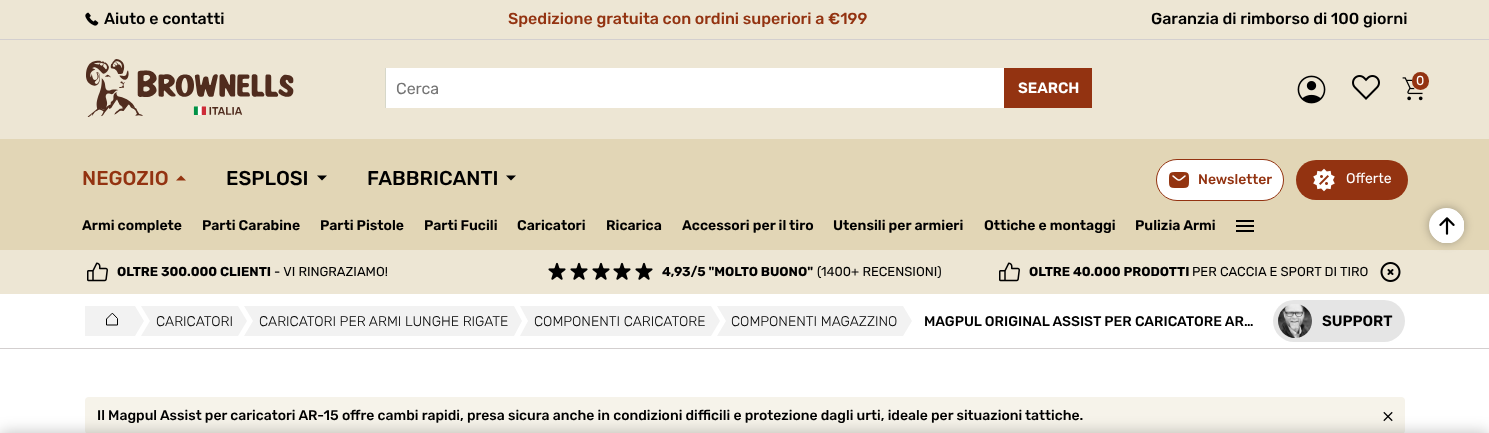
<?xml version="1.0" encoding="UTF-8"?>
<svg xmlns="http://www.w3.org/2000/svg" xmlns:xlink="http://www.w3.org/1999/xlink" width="1489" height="433">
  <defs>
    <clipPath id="clip1"><rect x="85" y="306" width="1168" height="30" /></clipPath>
  </defs>
  <rect width="100%" height="100%" fill="#ffffff" />
  <rect width="1489" height="39" fill="#ede6d4" />
  <rect y="39" width="1489" height="1" fill="#d3cfcf" />
  <image x="85" y="12" width="14" height="14" xlink:href="image1.png" />
  <rect y="40" width="1489" height="99" fill="#ede6d4" />
  <image x="86" y="59" width="208" height="58" xlink:href="image2.png" />
  <image x="1297" y="75" width="29" height="29" xlink:href="image3.png" />
  <image x="1352" y="75" width="28" height="25" xlink:href="image4.png" />
  <image x="1402" y="77" width="21" height="24" xlink:href="image5.png" />
  <rect x="1412" y="72" width="17" height="18" rx="8.5" fill="#933311" />
  <rect x="385.5" y="68.5" width="706" height="39" fill="none" stroke="#d6d7c9" />
  <rect x="386" y="68" width="618" height="40" fill="#ffffff" />
  <rect x="1004" y="68" width="88" height="40" fill="#933311" />
  <rect y="139" width="1489" height="111" fill="#e2d6b6" />
  <path d="M 181 175.5 l 5 5 h -10 z" fill="#933410" />
  <path d="M 322 180.5 l -5 -5 h 10 z" fill="#000000" />
  <path d="M 511 180.5 l -5 -5 h 10 z" fill="#000000" />
  <rect x="1156.5" y="159.5" width="127" height="41" rx="20.5" fill="#ffffff" stroke="#933311" />
  <image x="1169" y="172" width="20" height="16" xlink:href="image6.png" />
  <rect x="1296" y="160" width="112" height="40" rx="20" fill="#933311" />
  <image x="1313" y="168" width="22" height="24" xlink:href="image7.png" />
  <image x="1236" y="220" width="18" height="12" xlink:href="image8.png" />
  <rect y="250" width="1489" height="44" fill="#ede6d4" />
  <image x="87" y="262" width="21" height="20" xlink:href="image9.png" />
  <image x="548" y="262" width="18" height="18" xlink:href="image10.png" />
  <image x="570" y="262" width="18" height="18" xlink:href="image10.png" />
  <image x="592" y="262" width="18" height="18" xlink:href="image10.png" />
  <image x="613" y="262" width="18" height="18" xlink:href="image10.png" />
  <image x="635" y="262" width="18" height="18" xlink:href="image10.png" />
  <image x="999" y="262" width="21" height="20" xlink:href="image9.png" />
  <image x="1380" y="262" width="21" height="20" xlink:href="image11.png" />
  <rect y="348" width="1489" height="1" fill="#d3cfcf" />
  <g clip-path="url(#clip1)">
    <path d="M 70 306 h 65 l 9 15 h -65 z m 9 15 h 65 l -9 15 h -65 z" fill="#f2f2f2" />
  </g>
  <path d="M 112 313.5 l -5.5 5.5 v 6 h 11 v -6 z" fill="none" stroke="#000000" stroke-linecap="square" />
  <path d="M 141 306 h 97 l 9 15 h -97 z" fill="#f2f2f2" />
  <path d="M 150 321 h 97 l -9 15 h -97 z" fill="#f2f2f2" />
  <path d="M 244 306 h 270 l 8 15 h -269 z" fill="#f2f2f2" />
  <path d="M 253 321 h 269 l -8 15 h -270 z" fill="#f2f2f2" />
  <path d="M 520 306 h 191 l 9 15 h -192 z" fill="#f2f2f2" />
  <path d="M 528 321 h 192 l -9 15 h -191 z" fill="#f2f2f2" />
  <path d="M 717 306 h 186 l 9 15 h -186 z" fill="#f2f2f2" />
  <path d="M 726 321 h 186 l -9 15 h -186 z" fill="#f2f2f2" />
  <rect x="1273" y="300" width="132" height="42" rx="21" fill="#e5e5e5" />
  <image x="1278" y="304" width="34" height="34" xlink:href="image12.png" />
  <rect x="85" y="397" width="1320" height="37" rx="4" fill="#f6f3ea" />
  <image x="1383" y="411" width="10" height="11" xlink:href="image13.png" />
  <rect y="433" width="1489" height="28" rx="4" fill="#000000" fill-opacity="0.25" filter="blur(8px)" />
  <rect x="1429" y="208" width="35" height="35" rx="17.5" fill="#000000" fill-opacity="0.3" filter="blur(5px)" />
  <circle cx="1446.5" cy="225.5" r="17.5" fill="#ffffff" />
  <circle cx="1447" cy="226" r="14" fill="#000000" />
  <image x="1432" y="211" width="32" height="32" xlink:href="image14.png" />
  <text x="104" y="24" style="font-family: Rubik; font-size: 16px; font-weight: 500; fill: #000000">Aiuto e contatti</text>
  <text x="508" y="24" style="font-family: Rubik; font-size: 16px; font-weight: 500; fill: #933311">Spedizione gratuita con ordini superiori a €199</text>
  <text x="1151" y="24" style="font-family: Rubik; font-size: 16px; font-weight: 500; fill: #000000">Garanzia di rimborso di 100 giorni</text>
  <text x="1416" y="85" style="font-family: Rubik; font-size: 13px; fill: #ffffff">0</text>
  <text x="396" y="94" style="font-family: Rubik; font-size: 16px; fill: #757575">Cerca</text>
  <text x="1018" y="93" style="font-family: Rubik; font-size: 15px; font-weight: 600; fill: #ffffff">SEARCH</text>
  <text x="82" y="185" style="font-family: Rubik; font-size: 20px; font-weight: 500; fill: #933311">NEGOZIO</text>
  <text x="226" y="185" style="font-family: Rubik; font-size: 20px; font-weight: 500; fill: #000000">ESPLOSI</text>
  <text x="367" y="185" style="font-family: Rubik; font-size: 20px; font-weight: 500; fill: #000000">FABBRICANTI</text>
  <text x="1198" y="184" style="font-family: Rubik; font-size: 14px; font-weight: 500; fill: #933311">Newsletter</text>
  <text x="1346" y="183" style="font-family: Rubik; font-size: 14px; fill: #ffffff">Offerte</text>
  <text x="82" y="230" style="font-family: Rubik; font-size: 14px; font-weight: 600; fill: #000000">Armi complete</text>
  <text x="202" y="230" style="font-family: Rubik; font-size: 14px; font-weight: 600; fill: #000000">Parti Carabine</text>
  <text x="320" y="230" style="font-family: Rubik; font-size: 14px; font-weight: 600; fill: #000000">Parti Pistole</text>
  <text x="424" y="230" style="font-family: Rubik; font-size: 14px; font-weight: 600; fill: #000000">Parti Fucili</text>
  <text x="517" y="230" style="font-family: Rubik; font-size: 14px; font-weight: 600; fill: #000000">Caricatori</text>
  <text x="606" y="230" style="font-family: Rubik; font-size: 14px; font-weight: 600; fill: #000000">Ricarica</text>
  <text x="682" y="230" style="font-family: Rubik; font-size: 14px; font-weight: 600; fill: #000000">Accessori per il tiro</text>
  <text x="833" y="230" style="font-family: Rubik; font-size: 14px; font-weight: 600; fill: #000000">Utensili per armieri</text>
  <text x="984" y="230" style="font-family: Rubik; font-size: 14px; font-weight: 600; fill: #000000">Ottiche e montaggi</text>
  <text x="1135" y="230" style="font-family: Rubik; font-size: 14px; font-weight: 600; fill: #000000">Pulizia Armi</text>
  <text x="117" y="276" style="font-family: Rubik; font-size: 13px; font-weight: bold; fill: #000000">OLTRE 300.000 CLIENTI</text>
  <text x="274" y="276" style="font-family: Rubik; font-size: 13px; fill: #000000">- VI RINGRAZIAMO!</text>
  <text x="662" y="276" style="font-family: Rubik; font-size: 13px; font-weight: bold; fill: #000000">4,93/5 "MOLTO BUONO"</text>
  <text x="817" y="276" style="font-family: Rubik; font-size: 13px; fill: #000000">(1400+ RECENSIONI)</text>
  <text x="1029" y="276" style="font-family: Rubik; font-size: 13px; font-weight: bold; fill: #000000">OLTRE 40.000 PRODOTTI</text>
  <text x="1192" y="276" style="font-family: Rubik; font-size: 13px; fill: #000000">PER CACCIA E SPORT DI TIRO</text>
  <text x="156" y="326" style="font-family: Rubik; font-size: 14px; font-weight: 300; fill: #000000">CARICATORI</text>
  <text x="259" y="326" style="font-family: Rubik; font-size: 14px; font-weight: 300; fill: #000000">CARICATORI PER ARMI LUNGHE RIGATE</text>
  <text x="534" y="326" style="font-family: Rubik; font-size: 14px; font-weight: 300; fill: #000000">COMPONENTI CARICATORE</text>
  <text x="731" y="326" style="font-family: Rubik; font-size: 14px; font-weight: 300; fill: #000000">COMPONENTI MAGAZZINO</text>
  <text x="924" y="326" style="font-family: Rubik; font-size: 14px; font-weight: 500; fill: #000000">MAGPUL ORIGINAL ASSIST PER CARICATORE AR…</text>
  <text x="1322" y="326" style="font-family: Rubik; font-size: 15px; font-weight: 600; fill: #000000">SUPPORT</text>
  <text x="97" y="420" style="font-family: Rubik; font-size: 14px; font-weight: 500; fill: #000000">Il Magpul Assist per caricatori AR-15 offre cambi rapidi, presa sicura anche in condizioni difficili e protezione dagli urti, ideale per situazioni tattiche.</text>
</svg>
